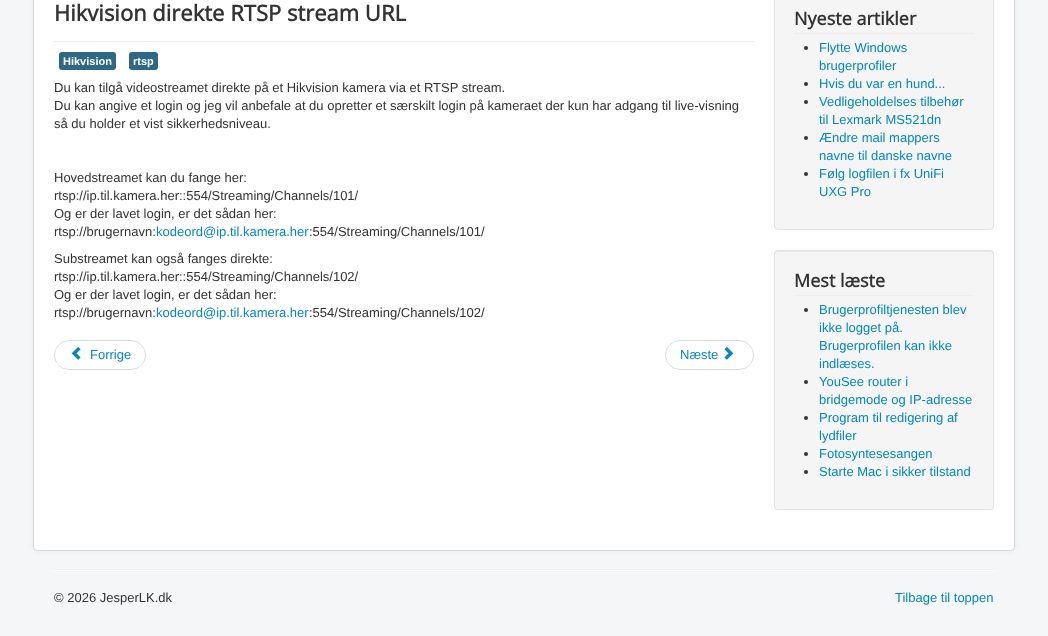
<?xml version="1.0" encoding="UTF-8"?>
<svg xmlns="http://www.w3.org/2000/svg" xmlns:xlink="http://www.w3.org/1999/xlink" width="1048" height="636">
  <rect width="100%" height="100%" fill="#f4f6f7" />
  <rect x="33" y="-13" width="982" height="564" rx="4" fill="#000000" fill-opacity="0.05" filter="blur(3px)" />
  <rect x="33" y="-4" width="982" height="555" rx="4" fill="#ffffff" />
  <rect x="33.5" y="-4.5" width="981" height="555" rx="3.5" fill="none" stroke="#000000" stroke-opacity="0.15" />
  <rect x="54" y="41" width="700" height="1" fill="#eeeeee" />
  <rect x="59" y="52" width="57" height="18" rx="3" fill="#2d6987" />
  <rect x="129" y="52" width="29" height="18" rx="3" fill="#2d6987" />
  <rect x="54.5" y="340.5" width="91" height="29" rx="14.5" fill="none" stroke="#dddddd" />
  <image x="71" y="346" width="10" height="14" xlink:href="image1.png" />
  <rect x="665.5" y="340.5" width="88" height="29" rx="14.5" fill="none" stroke="#dddddd" />
  <image x="724" y="346" width="10" height="14" xlink:href="image2.png" />
  <rect x="774.5" y="-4.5" width="219" height="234" rx="3.5" fill="#f5f5f5" stroke="#e3e3e3" />
  <rect x="794" y="33" width="180" height="1" fill="#eeeeee" />
  <circle cx="806" cy="48" r="2" fill="#333333" />
  <circle cx="806" cy="84" r="2" fill="#333333" />
  <circle cx="806" cy="102" r="2" fill="#333333" />
  <circle cx="806" cy="138" r="2" fill="#333333" />
  <circle cx="806" cy="174" r="2" fill="#333333" />
  <rect x="774" y="250" width="220" height="260" rx="4" fill="#f5f5f5" />
  <path d="M 778 252 h 212 c 2 0 3 1 3 3 v -1 c 0 -2 -1 -3 -3 -3 h -212 c -2 0 -3 1 -3 3 v 1 c 0 -2 1 -3 3 -3 z" fill="#e9e9e9" />
  <rect x="774.5" y="250.5" width="219" height="259" rx="3.5" fill="none" stroke="#e3e3e3" />
  <rect x="794" y="295" width="180" height="1" fill="#eeeeee" />
  <circle cx="806" cy="310" r="2" fill="#333333" />
  <circle cx="806" cy="382" r="2" fill="#333333" />
  <circle cx="806" cy="418" r="2" fill="#333333" />
  <circle cx="806" cy="454" r="2" fill="#333333" />
  <circle cx="806" cy="472" r="2" fill="#333333" />
  <rect x="54" y="569" width="940" height="1" fill="#eeeeee" />
  <rect x="54" y="570" width="940" height="1" fill="#ffffff" />
  <text x="54" y="21" style="font-family: Open Sans; font-size: 22px; font-weight: bold; fill: #333333">Hikvision direkte RTSP stream URL</text>
  <text x="63" y="65" style="font-family: Liberation Sans; font-size: 11px; font-weight: bold; fill: #ffffff">Hikvision</text>
  <text x="133" y="65" style="font-family: Liberation Sans; font-size: 11px; font-weight: bold; fill: #ffffff">rtsp</text>
  <text x="54" y="92" style="font-family: Liberation Sans; font-size: 13px; fill: #333333">Du kan tilgå videostreamet direkte på et Hikvision kamera via et RTSP stream.</text>
  <text x="54" y="110" style="font-family: Liberation Sans; font-size: 13px; fill: #333333">Du kan angive et login og jeg vil anbefale at du opretter et særskilt login på kameraet der kun har adgang til live-visning</text>
  <text x="54" y="128" style="font-family: Liberation Sans; font-size: 13px; fill: #333333">så du holder et vist sikkerhedsniveau.</text>
  <text x="54" y="182" style="font-family: Liberation Sans; font-size: 13px; fill: #333333">Hovedstreamet kan du fange her:</text>
  <text x="54" y="200" style="font-family: Liberation Sans; font-size: 13px; fill: #333333">rtsp://ip.til.kamera.her::554/Streaming/Channels/101/</text>
  <text x="54" y="218" style="font-family: Liberation Sans; font-size: 13px; fill: #333333">Og er der lavet login, er det sådan her:</text>
  <text x="54" y="236" style="font-family: Liberation Sans; font-size: 13px; fill: #333333">rtsp://brugernavn:</text>
  <text x="156" y="236" style="font-family: Liberation Sans; font-size: 13px; fill: #0088cc">kodeord@ip.til.kamera.her</text>
  <text x="309" y="236" style="font-family: Liberation Sans; font-size: 13px; fill: #333333">:554/Streaming/Channels/101/</text>
  <text x="54" y="263" style="font-family: Liberation Sans; font-size: 13px; fill: #333333">Substreamet kan også fanges direkte:</text>
  <text x="54" y="281" style="font-family: Liberation Sans; font-size: 13px; fill: #333333">rtsp://ip.til.kamera.her::554/Streaming/Channels/102/</text>
  <text x="54" y="299" style="font-family: Liberation Sans; font-size: 13px; fill: #333333">Og er der lavet login, er det sådan her:</text>
  <text x="54" y="317" style="font-family: Liberation Sans; font-size: 13px; fill: #333333">rtsp://brugernavn:</text>
  <text x="156" y="317" style="font-family: Liberation Sans; font-size: 13px; fill: #0088cc">kodeord@ip.til.kamera.her</text>
  <text x="309" y="317" style="font-family: Liberation Sans; font-size: 13px; fill: #333333">:554/Streaming/Channels/102/</text>
  <text x="90" y="359" style="font-family: Liberation Sans; font-size: 13px; fill: #0088cc">Forrige</text>
  <text x="680" y="359" style="font-family: Liberation Sans; font-size: 13px; fill: #0088cc">Næste</text>
  <text x="794" y="25" style="font-family: Open Sans; font-size: 18px; font-weight: bold; fill: #333333">Nyeste artikler</text>
  <text x="819" y="52" style="font-family: Liberation Sans; font-size: 13px; fill: #0088cc">Flytte Windows</text>
  <text x="819" y="70" style="font-family: Liberation Sans; font-size: 13px; fill: #0088cc">brugerprofiler</text>
  <text x="819" y="88" style="font-family: Liberation Sans; font-size: 13px; fill: #0088cc">Hvis du var en hund...</text>
  <text x="819" y="106" style="font-family: Liberation Sans; font-size: 13px; fill: #0088cc">Vedligeholdelses tilbehør</text>
  <text x="819" y="124" style="font-family: Liberation Sans; font-size: 13px; fill: #0088cc">til Lexmark MS521dn</text>
  <text x="819" y="142" style="font-family: Liberation Sans; font-size: 13px; fill: #0088cc">Ændre mail mappers</text>
  <text x="819" y="160" style="font-family: Liberation Sans; font-size: 13px; fill: #0088cc">navne til danske navne</text>
  <text x="819" y="178" style="font-family: Liberation Sans; font-size: 13px; fill: #0088cc">Følg logfilen i fx UniFi</text>
  <text x="819" y="196" style="font-family: Liberation Sans; font-size: 13px; fill: #0088cc">UXG Pro</text>
  <text x="794" y="287" style="font-family: Open Sans; font-size: 18px; font-weight: bold; fill: #333333">Mest læste</text>
  <text x="819" y="314" style="font-family: Liberation Sans; font-size: 13px; fill: #0088cc">Brugerprofiltjenesten blev</text>
  <text x="819" y="332" style="font-family: Liberation Sans; font-size: 13px; fill: #0088cc">ikke logget på.</text>
  <text x="819" y="350" style="font-family: Liberation Sans; font-size: 13px; fill: #0088cc">Brugerprofilen kan ikke</text>
  <text x="819" y="368" style="font-family: Liberation Sans; font-size: 13px; fill: #0088cc">indlæses.</text>
  <text x="819" y="386" style="font-family: Liberation Sans; font-size: 13px; fill: #0088cc">YouSee router i</text>
  <text x="819" y="404" style="font-family: Liberation Sans; font-size: 13px; fill: #0088cc">bridgemode og IP-adresse</text>
  <text x="819" y="422" style="font-family: Liberation Sans; font-size: 13px; fill: #0088cc">Program til redigering af</text>
  <text x="819" y="440" style="font-family: Liberation Sans; font-size: 13px; fill: #0088cc">lydfiler</text>
  <text x="819" y="458" style="font-family: Liberation Sans; font-size: 13px; fill: #0088cc">Fotosyntesesangen</text>
  <text x="819" y="476" style="font-family: Liberation Sans; font-size: 13px; fill: #0088cc">Starte Mac i sikker tilstand</text>
  <text x="54" y="602" style="font-family: Liberation Sans; font-size: 13px; fill: #333333">© 2026 JesperLK.dk</text>
  <text x="895" y="602" style="font-family: Liberation Sans; font-size: 13px; fill: #0088cc">Tilbage til toppen</text>
</svg>
